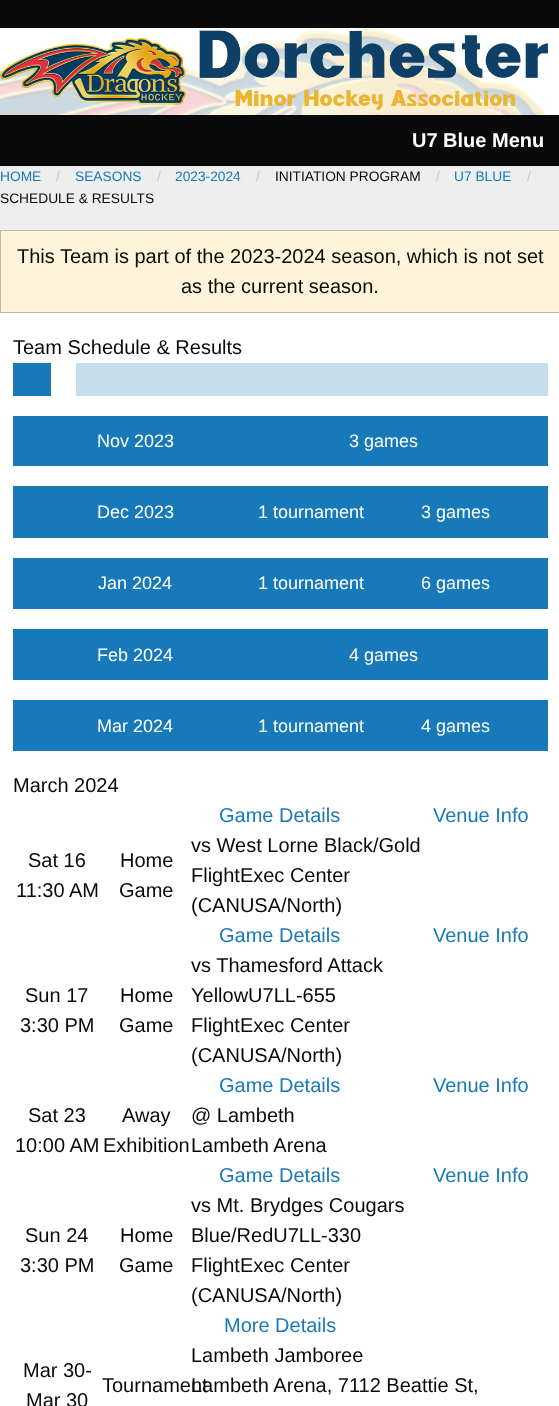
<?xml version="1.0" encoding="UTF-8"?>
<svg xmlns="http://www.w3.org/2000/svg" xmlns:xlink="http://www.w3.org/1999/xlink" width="559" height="1406">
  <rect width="100%" height="100%" fill="#eeeeee" />
  <rect width="559" height="28" fill="#0a0a0a" />
  <rect y="28" width="559" height="87" fill="#ffffff" />
  <image x="0" y="28" width="546" height="87" xlink:href="image1.png" />
  <image x="0" y="37" width="187" height="68" xlink:href="image2.png" />
  <image x="199" y="30" width="349" height="80" xlink:href="image3.png" />
  <rect y="115" width="559" height="51" fill="#0a0a0a" />
  <rect y="313" width="559" height="1093" fill="#ffffff" />
  <rect x="0.5" y="230.5" width="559" height="82" fill="#fff3d9" stroke="#c2b9a5" />
  <rect x="13" y="363" width="38" height="33" fill="#1779ba" />
  <rect x="76" y="363" width="472" height="33" fill="#c5deee" />
  <rect x="13" y="416" width="535" height="50" fill="#1779ba" />
  <rect x="13" y="486" width="535" height="52" fill="#1779ba" />
  <rect x="13" y="558" width="535" height="51" fill="#1779ba" />
  <rect x="13" y="629" width="535" height="51" fill="#1779ba" />
  <rect x="13" y="700" width="535" height="51" fill="#1779ba" />
  <text x="412" y="147" style="font-family: Liberation Sans; font-size: 20px; font-weight: bold; fill: #fefefe">U7 Blue Menu</text>
  <text x="0" y="181" style="font-family: Liberation Sans; font-size: 13.75px; fill: #1779ba">HOME</text>
  <text x="56" y="181" style="font-family: Liberation Sans; font-size: 13.75px; fill: #cacaca">/</text>
  <text x="75" y="181" style="font-family: Liberation Sans; font-size: 13.75px; fill: #1779ba">SEASONS</text>
  <text x="157" y="181" style="font-family: Liberation Sans; font-size: 13.75px; fill: #cacaca">/</text>
  <text x="175" y="181" style="font-family: Liberation Sans; font-size: 13.75px; fill: #1779ba">2023-2024</text>
  <text x="256" y="181" style="font-family: Liberation Sans; font-size: 13.75px; fill: #cacaca">/</text>
  <text x="275" y="181" style="font-family: Liberation Sans; font-size: 13.75px; fill: #0a0a0a">INITIATION PROGRAM</text>
  <text x="436" y="181" style="font-family: Liberation Sans; font-size: 13.75px; fill: #cacaca">/</text>
  <text x="454" y="181" style="font-family: Liberation Sans; font-size: 13.75px; fill: #1779ba">U7 BLUE</text>
  <text x="527" y="181" style="font-family: Liberation Sans; font-size: 13.75px; fill: #cacaca">/</text>
  <text x="0" y="203" style="font-family: Liberation Sans; font-size: 13.75px; fill: #0a0a0a">SCHEDULE &amp; RESULTS</text>
  <text x="17" y="263" style="font-family: Liberation Sans; font-size: 20px; fill: #0a0a0a">This Team is part of the 2023-2024 season, which is not set</text>
  <text x="181" y="293" style="font-family: Liberation Sans; font-size: 20px; fill: #0a0a0a">as the current season.</text>
  <text x="13" y="354" style="font-family: Liberation Sans; font-size: 20px; fill: #0a0a0a">Team Schedule &amp; Results</text>
  <text x="97" y="447" style="font-family: Liberation Sans; font-size: 18px; fill: #fefefe">Nov 2023</text>
  <text x="349" y="447" style="font-family: Liberation Sans; font-size: 18px; fill: #fefefe">3 games</text>
  <text x="97" y="518" style="font-family: Liberation Sans; font-size: 18px; fill: #fefefe">Dec 2023</text>
  <text x="258" y="518" style="font-family: Liberation Sans; font-size: 18px; fill: #fefefe">1 tournament</text>
  <text x="421" y="518" style="font-family: Liberation Sans; font-size: 18px; fill: #fefefe">3 games</text>
  <text x="98" y="589" style="font-family: Liberation Sans; font-size: 18px; fill: #fefefe">Jan 2024</text>
  <text x="258" y="589" style="font-family: Liberation Sans; font-size: 18px; fill: #fefefe">1 tournament</text>
  <text x="421" y="589" style="font-family: Liberation Sans; font-size: 18px; fill: #fefefe">6 games</text>
  <text x="97" y="661" style="font-family: Liberation Sans; font-size: 18px; fill: #fefefe">Feb 2024</text>
  <text x="349" y="661" style="font-family: Liberation Sans; font-size: 18px; fill: #fefefe">4 games</text>
  <text x="97" y="732" style="font-family: Liberation Sans; font-size: 18px; fill: #fefefe">Mar 2024</text>
  <text x="258" y="732" style="font-family: Liberation Sans; font-size: 18px; fill: #fefefe">1 tournament</text>
  <text x="421" y="732" style="font-family: Liberation Sans; font-size: 18px; fill: #fefefe">4 games</text>
  <text x="13" y="792" style="font-family: Liberation Sans; font-size: 20px; fill: #0a0a0a">March 2024</text>
  <text x="219" y="822" style="font-family: Liberation Sans; font-size: 20px; fill: #1779ba">Game Details</text>
  <text x="433" y="822" style="font-family: Liberation Sans; font-size: 20px; fill: #1779ba">Venue Info</text>
  <text x="28" y="867" style="font-family: Liberation Sans; font-size: 20px; fill: #0a0a0a">Sat 16</text>
  <text x="16" y="897" style="font-family: Liberation Sans; font-size: 20px; fill: #0a0a0a">11:30 AM</text>
  <text x="120" y="867" style="font-family: Liberation Sans; font-size: 20px; fill: #0a0a0a">Home</text>
  <text x="119" y="897" style="font-family: Liberation Sans; font-size: 20px; fill: #0a0a0a">Game</text>
  <text x="191" y="852" style="font-family: Liberation Sans; font-size: 20px; fill: #0a0a0a">vs West Lorne Black/Gold</text>
  <text x="191" y="882" style="font-family: Liberation Sans; font-size: 20px; fill: #0a0a0a">FlightExec Center</text>
  <text x="191" y="912" style="font-family: Liberation Sans; font-size: 20px; fill: #0a0a0a">(CANUSA/North)</text>
  <text x="219" y="942" style="font-family: Liberation Sans; font-size: 20px; fill: #1779ba">Game Details</text>
  <text x="433" y="942" style="font-family: Liberation Sans; font-size: 20px; fill: #1779ba">Venue Info</text>
  <text x="25" y="1002" style="font-family: Liberation Sans; font-size: 20px; fill: #0a0a0a">Sun 17</text>
  <text x="20" y="1032" style="font-family: Liberation Sans; font-size: 20px; fill: #0a0a0a">3:30 PM</text>
  <text x="120" y="1002" style="font-family: Liberation Sans; font-size: 20px; fill: #0a0a0a">Home</text>
  <text x="119" y="1032" style="font-family: Liberation Sans; font-size: 20px; fill: #0a0a0a">Game</text>
  <text x="191" y="972" style="font-family: Liberation Sans; font-size: 20px; fill: #0a0a0a">vs Thamesford Attack</text>
  <text x="191" y="1002" style="font-family: Liberation Sans; font-size: 20px; fill: #0a0a0a">YellowU7LL-655</text>
  <text x="191" y="1032" style="font-family: Liberation Sans; font-size: 20px; fill: #0a0a0a">FlightExec Center</text>
  <text x="191" y="1062" style="font-family: Liberation Sans; font-size: 20px; fill: #0a0a0a">(CANUSA/North)</text>
  <text x="219" y="1092" style="font-family: Liberation Sans; font-size: 20px; fill: #1779ba">Game Details</text>
  <text x="433" y="1092" style="font-family: Liberation Sans; font-size: 20px; fill: #1779ba">Venue Info</text>
  <text x="28" y="1122" style="font-family: Liberation Sans; font-size: 20px; fill: #0a0a0a">Sat 23</text>
  <text x="15" y="1152" style="font-family: Liberation Sans; font-size: 20px; fill: #0a0a0a">10:00 AM</text>
  <text x="122" y="1122" style="font-family: Liberation Sans; font-size: 20px; fill: #0a0a0a">Away</text>
  <text x="103" y="1152" style="font-family: Liberation Sans; font-size: 20px; fill: #0a0a0a">Exhibition</text>
  <text x="191" y="1122" style="font-family: Liberation Sans; font-size: 20px; fill: #0a0a0a">@ Lambeth</text>
  <text x="191" y="1152" style="font-family: Liberation Sans; font-size: 20px; fill: #0a0a0a">Lambeth Arena</text>
  <text x="219" y="1182" style="font-family: Liberation Sans; font-size: 20px; fill: #1779ba">Game Details</text>
  <text x="433" y="1182" style="font-family: Liberation Sans; font-size: 20px; fill: #1779ba">Venue Info</text>
  <text x="25" y="1242" style="font-family: Liberation Sans; font-size: 20px; fill: #0a0a0a">Sun 24</text>
  <text x="20" y="1272" style="font-family: Liberation Sans; font-size: 20px; fill: #0a0a0a">3:30 PM</text>
  <text x="120" y="1242" style="font-family: Liberation Sans; font-size: 20px; fill: #0a0a0a">Home</text>
  <text x="119" y="1272" style="font-family: Liberation Sans; font-size: 20px; fill: #0a0a0a">Game</text>
  <text x="191" y="1212" style="font-family: Liberation Sans; font-size: 20px; fill: #0a0a0a">vs Mt. Brydges Cougars</text>
  <text x="191" y="1242" style="font-family: Liberation Sans; font-size: 20px; fill: #0a0a0a">Blue/RedU7LL-330</text>
  <text x="191" y="1272" style="font-family: Liberation Sans; font-size: 20px; fill: #0a0a0a">FlightExec Center</text>
  <text x="191" y="1302" style="font-family: Liberation Sans; font-size: 20px; fill: #0a0a0a">(CANUSA/North)</text>
  <text x="224" y="1332" style="font-family: Liberation Sans; font-size: 20px; fill: #1779ba">More Details</text>
  <text x="23" y="1377" style="font-family: Liberation Sans; font-size: 20px; fill: #0a0a0a">Mar 30-</text>
  <text x="26" y="1407" style="font-family: Liberation Sans; font-size: 20px; fill: #0a0a0a">Mar 30</text>
  <text x="102" y="1392" style="font-family: Liberation Sans; font-size: 20px; fill: #0a0a0a">Tournament</text>
  <text x="191" y="1362" style="font-family: Liberation Sans; font-size: 20px; fill: #0a0a0a">Lambeth Jamboree</text>
  <text x="191" y="1392" style="font-family: Liberation Sans; font-size: 20px; fill: #0a0a0a">Lambeth Arena, 7112 Beattie St,</text>
</svg>
